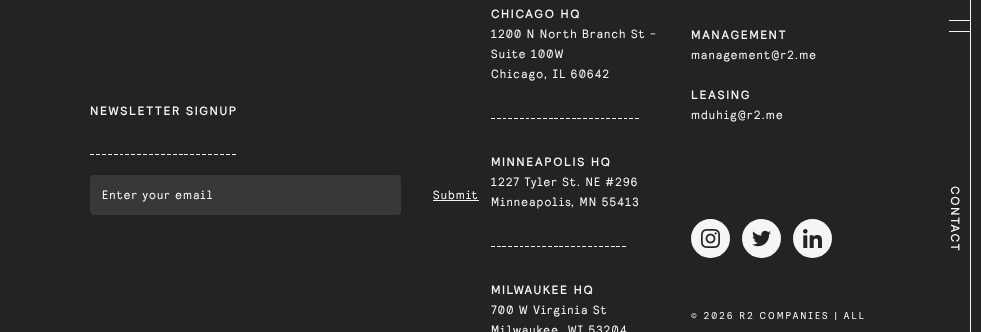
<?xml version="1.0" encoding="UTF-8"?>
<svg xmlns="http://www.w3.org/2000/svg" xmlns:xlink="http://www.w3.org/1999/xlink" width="981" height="332">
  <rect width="100%" height="100%" fill="#232323" />
  <image x="90" y="154" width="146" height="1" xlink:href="image1.png" />
  <rect x="90" y="175" width="311" height="40" rx="4" fill="#383838" />
  <rect x="433" y="200" width="46" height="1" fill="#f5f5f3" />
  <image x="491" y="118" width="148" height="1" xlink:href="image2.png" />
  <image x="491" y="246" width="135" height="1" xlink:href="image3.png" />
  <circle cx="710.5" cy="238.5" r="19.5" fill="#f5f5f3" />
  <image x="701" y="229" width="19" height="19" xlink:href="image4.png" />
  <circle cx="761.5" cy="238.5" r="19.5" fill="#f5f5f3" />
  <image x="752" y="230" width="19" height="17" xlink:href="image5.png" />
  <circle cx="812.5" cy="238.5" r="19.5" fill="#f5f5f3" />
  <image x="803" y="229" width="19" height="19" xlink:href="image6.png" />
  <rect x="970" width="1" height="332" fill="#f5f5f3" />
  <rect x="949" y="20" width="22" height="1" fill="#f5f5f3" />
  <rect x="949" y="31" width="22" height="1" fill="#f5f5f3" />
  <text x="90" y="115" style="font-family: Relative; font-size: 12px; font-weight: 500; letter-spacing: 1.75px; fill: #f5f5f3">NEWSLETTER SIGNUP</text>
  <text x="102" y="199" style="font-family: Relative; font-size: 12px; letter-spacing: 1.3px; fill: #f5f5f3">Enter your email</text>
  <text x="433" y="199" style="font-family: Relative; font-size: 12px; letter-spacing: 1.3px; fill: #f5f5f3">Submit</text>
  <text x="491" y="18" style="font-family: Relative; font-size: 12px; font-weight: 500; letter-spacing: 1.75px; fill: #f5f5f3">CHICAGO HQ</text>
  <text x="491" y="38" style="font-family: Relative; font-size: 12px; letter-spacing: 1.3px; fill: #f5f5f3">1200 N North Branch St -</text>
  <text x="491" y="58" style="font-family: Relative; font-size: 12px; letter-spacing: 1.3px; fill: #f5f5f3">Suite 100W</text>
  <text x="491" y="78" style="font-family: Relative; font-size: 12px; letter-spacing: 1.3px; fill: #f5f5f3">Chicago, IL 60642</text>
  <text x="491" y="166" style="font-family: Relative; font-size: 12px; font-weight: 500; letter-spacing: 1.75px; fill: #f5f5f3">MINNEAPOLIS HQ</text>
  <text x="491" y="186" style="font-family: Relative; font-size: 12px; letter-spacing: 1.3px; fill: #f5f5f3">1227 Tyler St. NE #296</text>
  <text x="491" y="206" style="font-family: Relative; font-size: 12px; letter-spacing: 1.3px; fill: #f5f5f3">Minneapolis</text>
  <text x="571" y="206" style="font-family: Relative; font-size: 12px; letter-spacing: 1.3px; fill: #f5f5f3">, MN 55413</text>
  <text x="491" y="294" style="font-family: Relative; font-size: 12px; font-weight: 500; letter-spacing: 1.75px; fill: #f5f5f3">MILWAUKEE HQ</text>
  <text x="491" y="314" style="font-family: Relative; font-size: 12px; letter-spacing: 1.3px; fill: #f5f5f3">700 W Virginia St</text>
  <text x="491" y="334" style="font-family: Relative; font-size: 12px; letter-spacing: 1.3px; fill: #f5f5f3">Milwaukee</text>
  <text x="568" y="334" style="font-family: Relative; font-size: 12px; letter-spacing: 1.3px; fill: #f5f5f3">WI 53204</text>
  <text x="691" y="39" style="font-family: Relative; font-size: 12px; font-weight: 500; letter-spacing: 1.75px; fill: #f5f5f3">MANAGEMENT</text>
  <text x="691" y="59" style="font-family: Relative; font-size: 12px; letter-spacing: 1.3px; fill: #f5f5f3">management@r2.me</text>
  <text x="691" y="99" style="font-family: Relative; font-size: 12px; font-weight: 500; letter-spacing: 1.75px; fill: #f5f5f3">LEASING</text>
  <text x="691" y="119" style="font-family: Relative; font-size: 12px; letter-spacing: 1.3px; fill: #f5f5f3">mduhig@r2.me</text>
  <text x="691" y="319" style="font-family: Relative; font-size: 10px; letter-spacing: 2.25px; fill: #f5f5f3">© 2026 R2 COMPANIES | ALL</text>
  <text x="951" y="186" transform="rotate(90 951 186)" style="font-family: Relative; font-size: 12px; font-weight: 500; letter-spacing: 1.75px; fill: #f5f5f3">CONTACT</text>
</svg>
